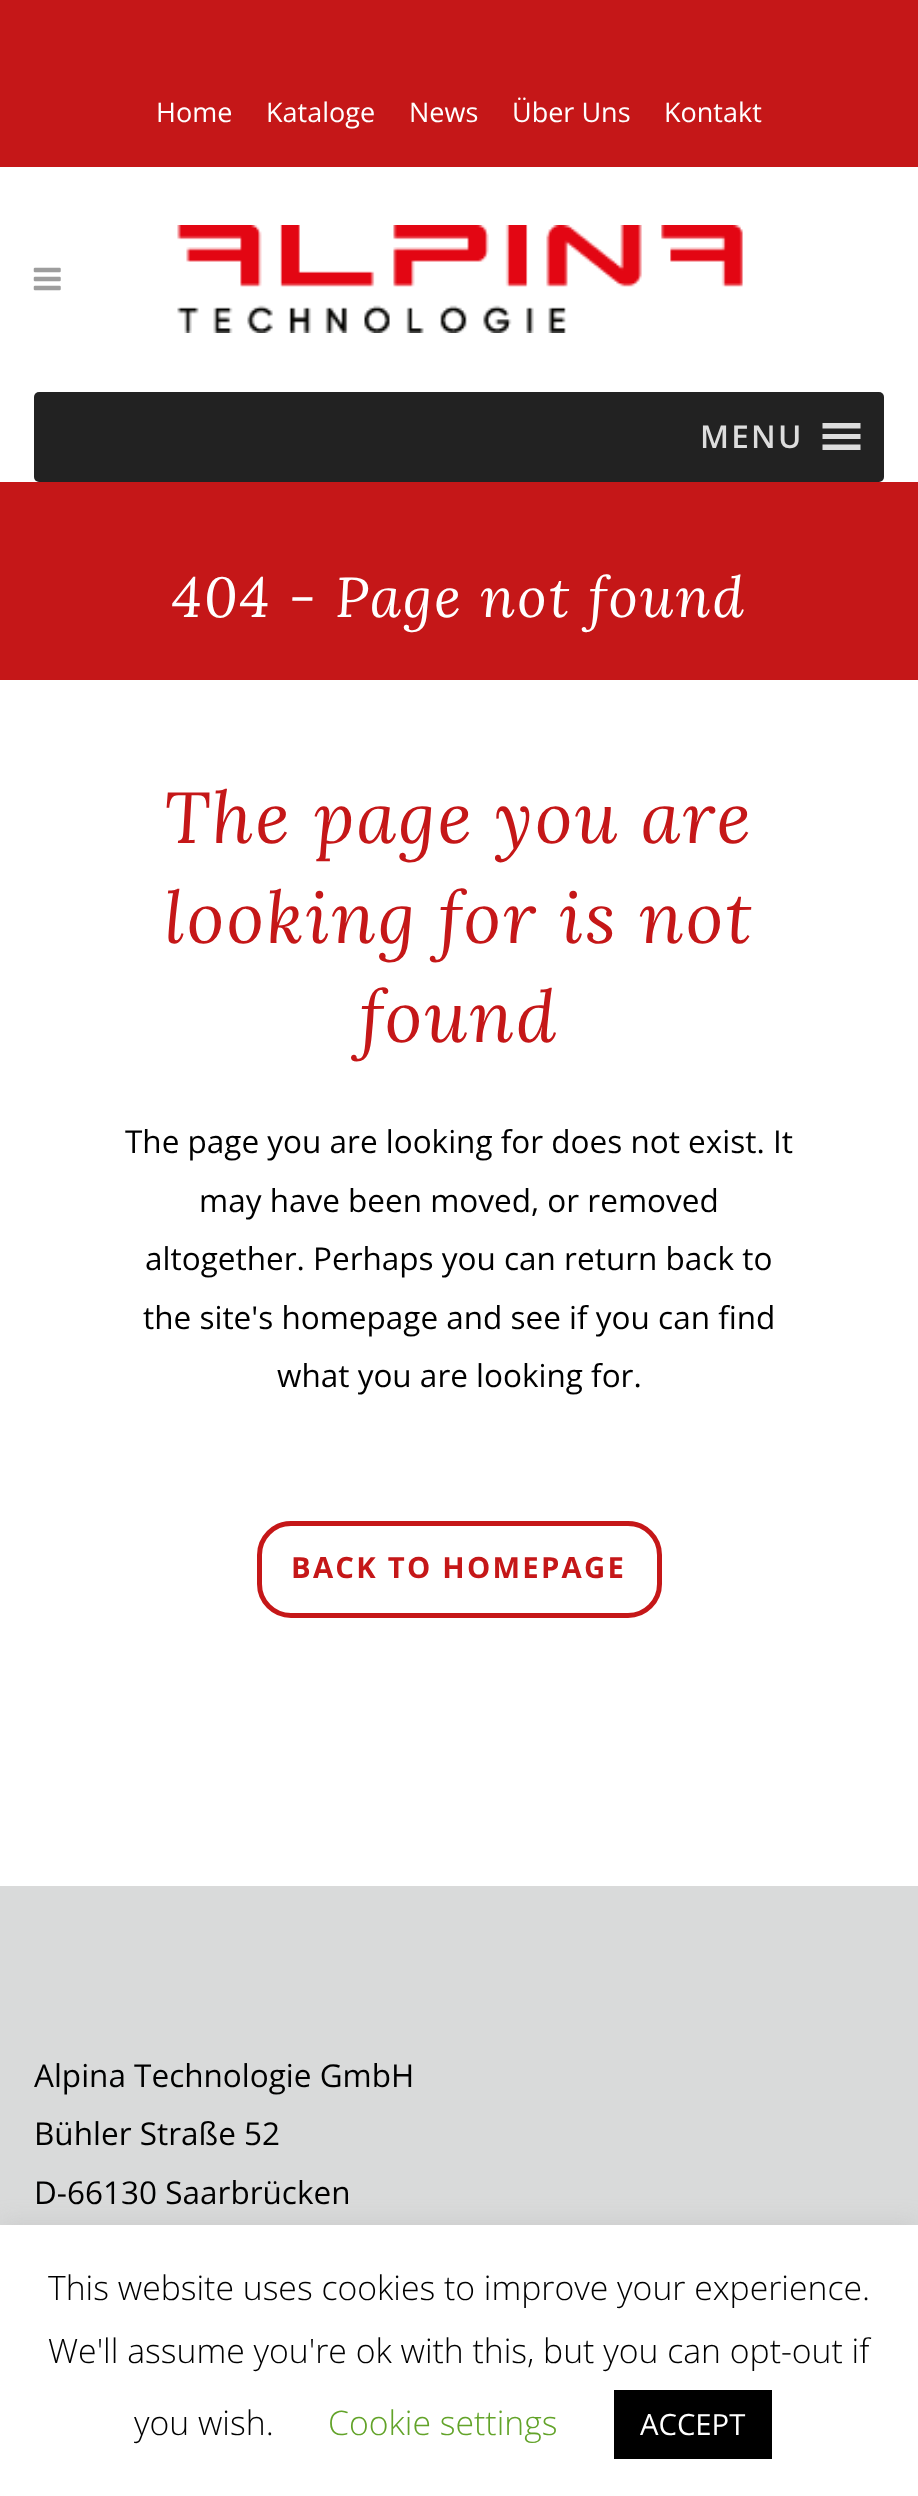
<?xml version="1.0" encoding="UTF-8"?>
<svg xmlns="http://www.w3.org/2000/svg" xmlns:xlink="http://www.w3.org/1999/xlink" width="918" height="2496">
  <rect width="100%" height="100%" fill="#ffffff" />
  <rect width="918" height="167" fill="#c51718" />
  <image x="33" y="267" width="28" height="24" xlink:href="image1.png" />
  <image x="177" y="225" width="566" height="108" xlink:href="image2.png" />
  <rect x="34" y="392" width="850" height="90" rx="5" fill="#222222" />
  <path d="M 822.5 450 h 38 v -5.5 h -38 z m 0 -27 v 5.5 h 38 v -5.5 z m 0 16 h 38 v -5 h -38 z" fill="#dddddd" />
  <rect y="482" width="918" height="198" fill="#c51718" />
  <rect x="259.5" y="1523.5" width="400" height="92" rx="31.5" fill="none" stroke="#c51718" stroke-width="5" />
  <rect y="1886" width="918" height="339" fill="#d9dada" />
  <rect y="2223" width="918" height="272" fill="#acabab" fill-opacity="0.3" filter="blur(11px)" />
  <rect y="2225" width="918" height="271" fill="#ffffff" />
  <rect x="614" y="2390" width="158" height="69" fill="#000000" />
  <text x="156" y="122" style="font-family: Open Sans; font-size: 27px; fill: #ffffff">Home</text>
  <text x="266" y="122" style="font-family: Open Sans; font-size: 27px; fill: #ffffff">Kataloge</text>
  <text x="409" y="122" style="font-family: Open Sans; font-size: 27px; fill: #ffffff">News</text>
  <text x="512" y="122" style="font-family: Open Sans; font-size: 27px; fill: #ffffff">Über Uns</text>
  <text x="664" y="122" style="font-family: Open Sans; font-size: 27px; fill: #ffffff">Kontakt</text>
  <text x="700" y="448" style="font-family: Open Sans; font-size: 31.5px; font-weight: 600; letter-spacing: 2.25px; fill: #dddddd">MENU</text>
  <text x="172" y="617" style="font-family: Lora; font-size: 56.25px; font-style: italic; letter-spacing: 2.25px; fill: #ffffff">404 - Page not found</text>
  <text x="164" y="843" style="font-family: Lora; font-size: 72px; font-style: italic; letter-spacing: 2.25px; fill: #c51718">The page you are</text>
  <text x="164" y="943" style="font-family: Lora; font-size: 72px; font-style: italic; letter-spacing: 2.25px; fill: #c51718">looking for is not</text>
  <text x="360" y="1042" style="font-family: Lora; font-size: 72px; font-style: italic; letter-spacing: 2.25px; fill: #c51718">found</text>
  <text x="125" y="1153" style="font-family: Open Sans; font-size: 31.5px; fill: #000000">The page you are looking for does not exist. It</text>
  <text x="199" y="1212" style="font-family: Open Sans; font-size: 31.5px; fill: #000000">may have been moved, or removed</text>
  <text x="145" y="1270" style="font-family: Open Sans; font-size: 31.5px; fill: #000000">altogether. Perhaps you can return back to</text>
  <text x="143" y="1329" style="font-family: Open Sans; font-size: 31.5px; fill: #000000">the site's homepage and see if you can find</text>
  <text x="277" y="1387" style="font-family: Open Sans; font-size: 31.5px; fill: #000000">what you are looking for.</text>
  <text x="291" y="1578" style="font-family: Open Sans; font-size: 29.25px; font-weight: bold; letter-spacing: 2.25px; fill: #c51718">BACK TO HOMEPAGE</text>
  <text x="34" y="2087" style="font-family: Open Sans; font-size: 31.5px; fill: #000000">Alpina Technologie GmbH</text>
  <text x="34" y="2145" style="font-family: Open Sans; font-size: 31.5px; fill: #000000">Bühler Straße 52</text>
  <text x="34" y="2204" style="font-family: Open Sans; font-size: 31.5px; fill: #000000">D-66130 Saarbrücken</text>
  <text x="48" y="2300" style="font-family: Open Sans; font-size: 33.75px; font-weight: 300; fill: #000000">This website uses cookies to improve your experience.</text>
  <text x="48" y="2363" style="font-family: Open Sans; font-size: 33.75px; font-weight: 300; fill: #000000">We'll assume you're ok with this, but you can opt-out if</text>
  <text x="134" y="2435" style="font-family: Open Sans; font-size: 33.75px; font-weight: 300; fill: #000000">you wish.</text>
  <text x="328" y="2435" style="font-family: Open Sans; font-size: 33.75px; font-weight: 300; fill: #62a329">Cookie settings</text>
  <text x="640" y="2435" style="font-family: Open Sans; font-size: 29.25px; fill: #ffffff">ACCEPT</text>
</svg>
